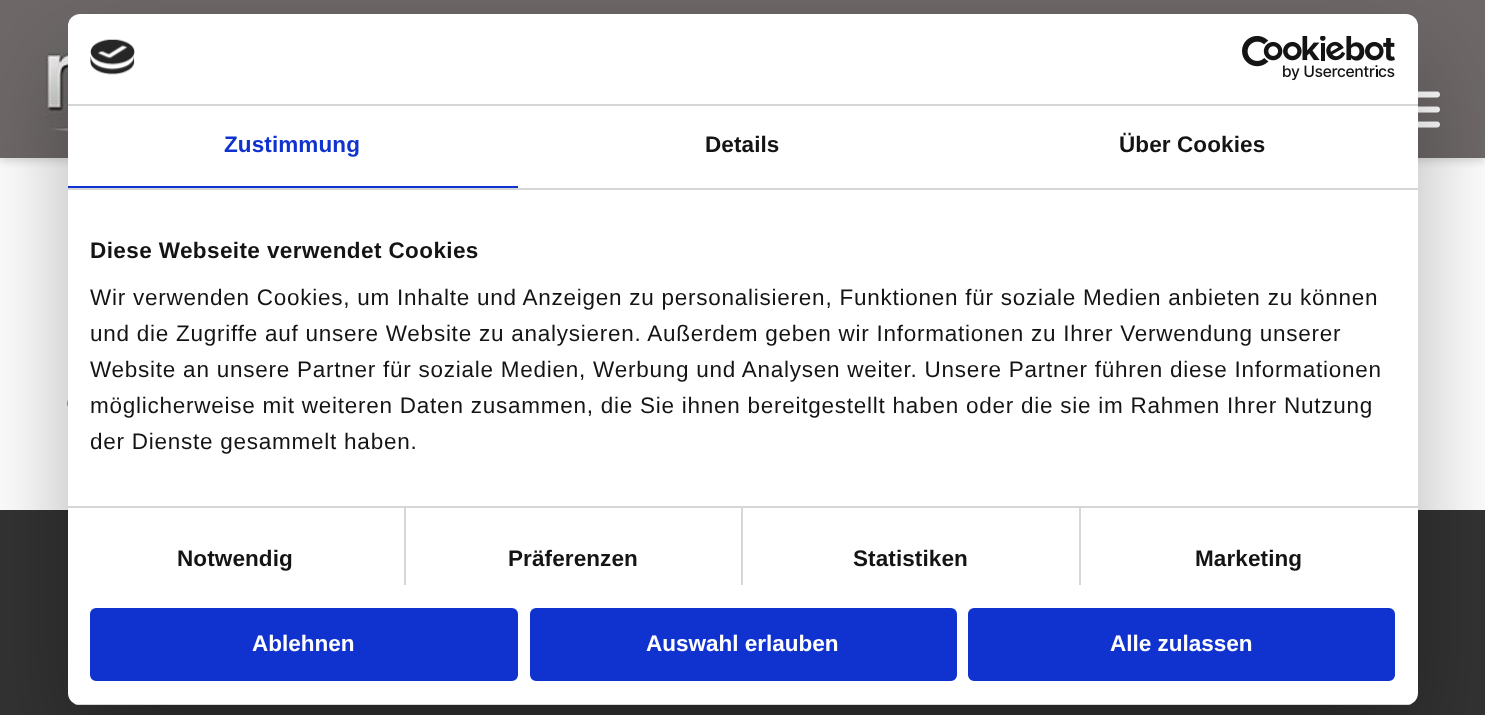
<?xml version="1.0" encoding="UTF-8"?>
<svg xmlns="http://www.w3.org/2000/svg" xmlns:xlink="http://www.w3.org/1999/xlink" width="1485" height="715">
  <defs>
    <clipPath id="clip1"><rect x="68" y="14" width="1350" height="691" rx="12" /></clipPath>
  </defs>
  <rect width="100%" height="100%" fill="#ffffff" />
  <rect y="3" width="1485" height="158" fill="#000000" fill-opacity="0.15" filter="blur(4px)" />
  <rect width="1485" height="158" fill="#6e6968" />
  <image x="45" y="30" width="23" height="113" xlink:href="image1.png" />
  <image x="1418" y="91" width="22" height="37" xlink:href="image2.png" />
  <image x="67" y="400" width="1" height="7" xlink:href="image3.png" />
  <rect y="510" width="1485" height="205" fill="#333333" />
  <rect x="68" y="62" width="1350" height="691" rx="12" fill="#000000" fill-opacity="0.3" filter="blur(51px)" />
  <rect x="68" y="14" width="1350" height="691" rx="12" fill="#ffffff" />
  <rect x="68" y="104" width="1350" height="2" fill="#d6d6d6" />
  <image x="90" y="39" width="45" height="36" xlink:href="image4.png" />
  <image x="1242" y="36" width="153" height="45" xlink:href="image5.png" />
  <rect x="68" y="188" width="1350" height="2" fill="#d6d6d6" />
  <rect x="68" y="186" width="450" height="2" fill="#1032cf" />
  <rect x="404" y="507" width="2" height="78" fill="#d6d6d6" />
  <rect x="741" y="507" width="2" height="78" fill="#d6d6d6" />
  <rect x="1079" y="507" width="2" height="78" fill="#d6d6d6" />
  <rect x="68" y="506" width="1350" height="2" fill="#d6d6d6" />
  <g clip-path="url(#clip1)">
    <rect x="68" y="704" width="1350" height="1" fill="#d6d6d6" />
  </g>
  <rect x="91.5" y="609.5" width="425" height="70" rx="4.5" fill="#1032cf" stroke="#1032cf" stroke-width="3" />
  <rect x="531.5" y="609.5" width="424" height="70" rx="4.5" fill="#1032cf" stroke="#1032cf" stroke-width="3" />
  <rect x="969.5" y="609.5" width="424" height="70" rx="4.5" fill="#1032cf" stroke="#1032cf" stroke-width="3" />
  <text x="224" y="152" style="font-family: Liberation Sans; font-size: 22.5px; font-weight: bold; letter-spacing: 0.1px; fill: #1032cf">Zustimmung</text>
  <text x="705" y="152" style="font-family: Liberation Sans; font-size: 22.5px; font-weight: bold; letter-spacing: 0.1px; fill: #141414">Details</text>
  <text x="1119" y="152" style="font-family: Liberation Sans; font-size: 22.5px; font-weight: bold; letter-spacing: 0.1px; fill: #141414">Über Cookies</text>
  <text x="90" y="258" style="font-family: Liberation Sans; font-size: 22.5px; font-weight: bold; letter-spacing: 0.4px; fill: #141414">Diese Webseite verwendet Cookies</text>
  <text x="90" y="305" style="font-family: Liberation Sans; font-size: 22.5px; letter-spacing: 0.75px; fill: #141414">Wir verwenden Cookies, um Inhalte und Anzeigen zu personalisieren, Funktionen für soziale Medien anbieten zu können</text>
  <text x="90" y="341" style="font-family: Liberation Sans; font-size: 22.5px; letter-spacing: 0.75px; fill: #141414">und die Zugriffe auf unsere Website zu analysieren. Außerdem geben wir Informationen zu Ihrer Verwendung unserer</text>
  <text x="90" y="377" style="font-family: Liberation Sans; font-size: 22.5px; letter-spacing: 0.75px; fill: #141414">Website an unsere Partner für soziale Medien, Werbung und Analysen weiter. Unsere Partner führen diese Informationen</text>
  <text x="90" y="413" style="font-family: Liberation Sans; font-size: 22.5px; letter-spacing: 0.75px; fill: #141414">möglicherweise mit weiteren Daten zusammen, die Sie ihnen bereitgestellt haben oder die sie im Rahmen Ihrer Nutzung</text>
  <text x="90" y="449" style="font-family: Liberation Sans; font-size: 22.5px; letter-spacing: 0.75px; fill: #141414">der Dienste gesammelt haben.</text>
  <text x="177" y="566" style="font-family: Liberation Sans; font-size: 22.5px; font-weight: bold; letter-spacing: 0.1px; fill: #141414">Notwendig</text>
  <text x="508" y="566" style="font-family: Liberation Sans; font-size: 22.5px; font-weight: bold; letter-spacing: 0.1px; fill: #141414">Präferenzen</text>
  <text x="853" y="566" style="font-family: Liberation Sans; font-size: 22.5px; font-weight: bold; letter-spacing: 0.1px; fill: #141414">Statistiken</text>
  <text x="1195" y="566" style="font-family: Liberation Sans; font-size: 22.5px; font-weight: bold; letter-spacing: 0.1px; fill: #141414">Marketing</text>
  <text x="252" y="651" style="font-family: Liberation Sans; font-size: 22.5px; font-weight: bold; fill: #ffffff">Ablehnen</text>
  <text x="646" y="651" style="font-family: Liberation Sans; font-size: 22.5px; font-weight: bold; fill: #ffffff">Auswahl erlauben</text>
  <text x="1110" y="651" style="font-family: Liberation Sans; font-size: 22.5px; font-weight: bold; fill: #ffffff">Alle zulassen</text>
</svg>
